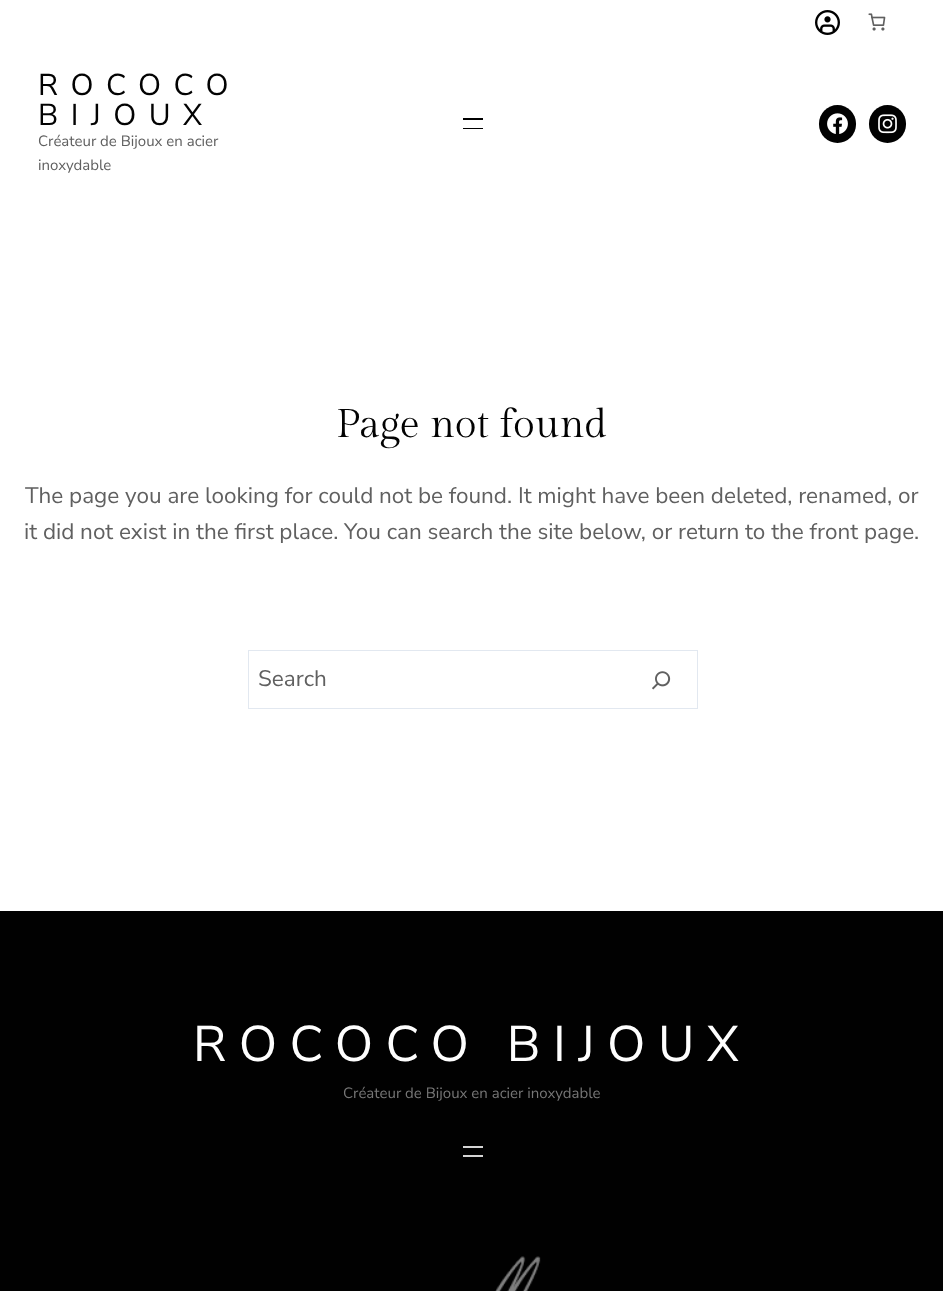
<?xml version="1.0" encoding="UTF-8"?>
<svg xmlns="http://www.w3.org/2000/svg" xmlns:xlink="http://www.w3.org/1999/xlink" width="943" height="1291">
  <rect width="100%" height="100%" fill="#ffffff" />
  <image x="815" y="10" width="25" height="25" xlink:href="image1.png" />
  <image x="868" y="13" width="18" height="18" xlink:href="image2.png" />
  <rect x="463" y="118" width="20" height="2" fill="#000000" />
  <rect x="463" y="128" width="20" height="1" fill="#000000" />
  <rect x="819" y="105" width="37" height="38" rx="18.5" fill="#010101" />
  <image x="827" y="113" width="21" height="21" xlink:href="image3.png" />
  <rect x="869" y="105" width="37" height="38" rx="18.5" fill="#010101" />
  <image x="878" y="114" width="19" height="20" xlink:href="image4.png" />
  <rect x="248.5" y="650.5" width="449" height="58" fill="none" stroke="#e2e8f0" />
  <image x="652" y="671" width="19" height="19" xlink:href="image5.png" />
  <rect y="911" width="943" height="380" fill="#010101" />
  <rect x="463" y="1146" width="20" height="2" fill="#d4d4d4" />
  <rect x="463" y="1155" width="20" height="2" fill="#d4d4d4" />
  <image x="495" y="1256" width="46" height="35" xlink:href="image6.png" />
  <text x="38" y="95" style="font-family: Nunito Sans; font-size: 30px; letter-spacing: 12.5px; fill: #020202">ROCOCO</text>
  <text x="38" y="125" style="font-family: Nunito Sans; font-size: 30px; letter-spacing: 12.5px; fill: #020202">BIJOUX</text>
  <text x="38" y="146" style="font-family: Nunito Sans; font-size: 15px; fill: #606060">Créateur de Bijoux en acier</text>
  <text x="38" y="170" style="font-family: Nunito Sans; font-size: 15px; fill: #606060">inoxydable</text>
  <text x="336" y="437" style="font-family: Gilda Display; font-size: 40px; fill: #020202">Page not found</text>
  <text x="25" y="503" style="font-family: Nunito Sans; font-size: 22.5px; fill: #606060">The page you are looking for could not be found. It might have been deleted, renamed, or</text>
  <text x="24" y="539" style="font-family: Nunito Sans; font-size: 22.5px; fill: #606060">it did not exist in the first place. You can search the site below, or return to the front page.</text>
  <text x="258" y="686" style="font-family: Nunito Sans; font-size: 22.5px; fill: #606060">Search</text>
  <text x="193" y="1061" style="font-family: Nunito Sans; font-size: 50px; letter-spacing: 12.5px; fill: #fefefe">ROCOCO BIJOUX</text>
  <text x="343" y="1098" style="font-family: Nunito Sans; font-size: 15px; fill: #767676">Créateur de Bijoux en acier inoxydable</text>
</svg>
